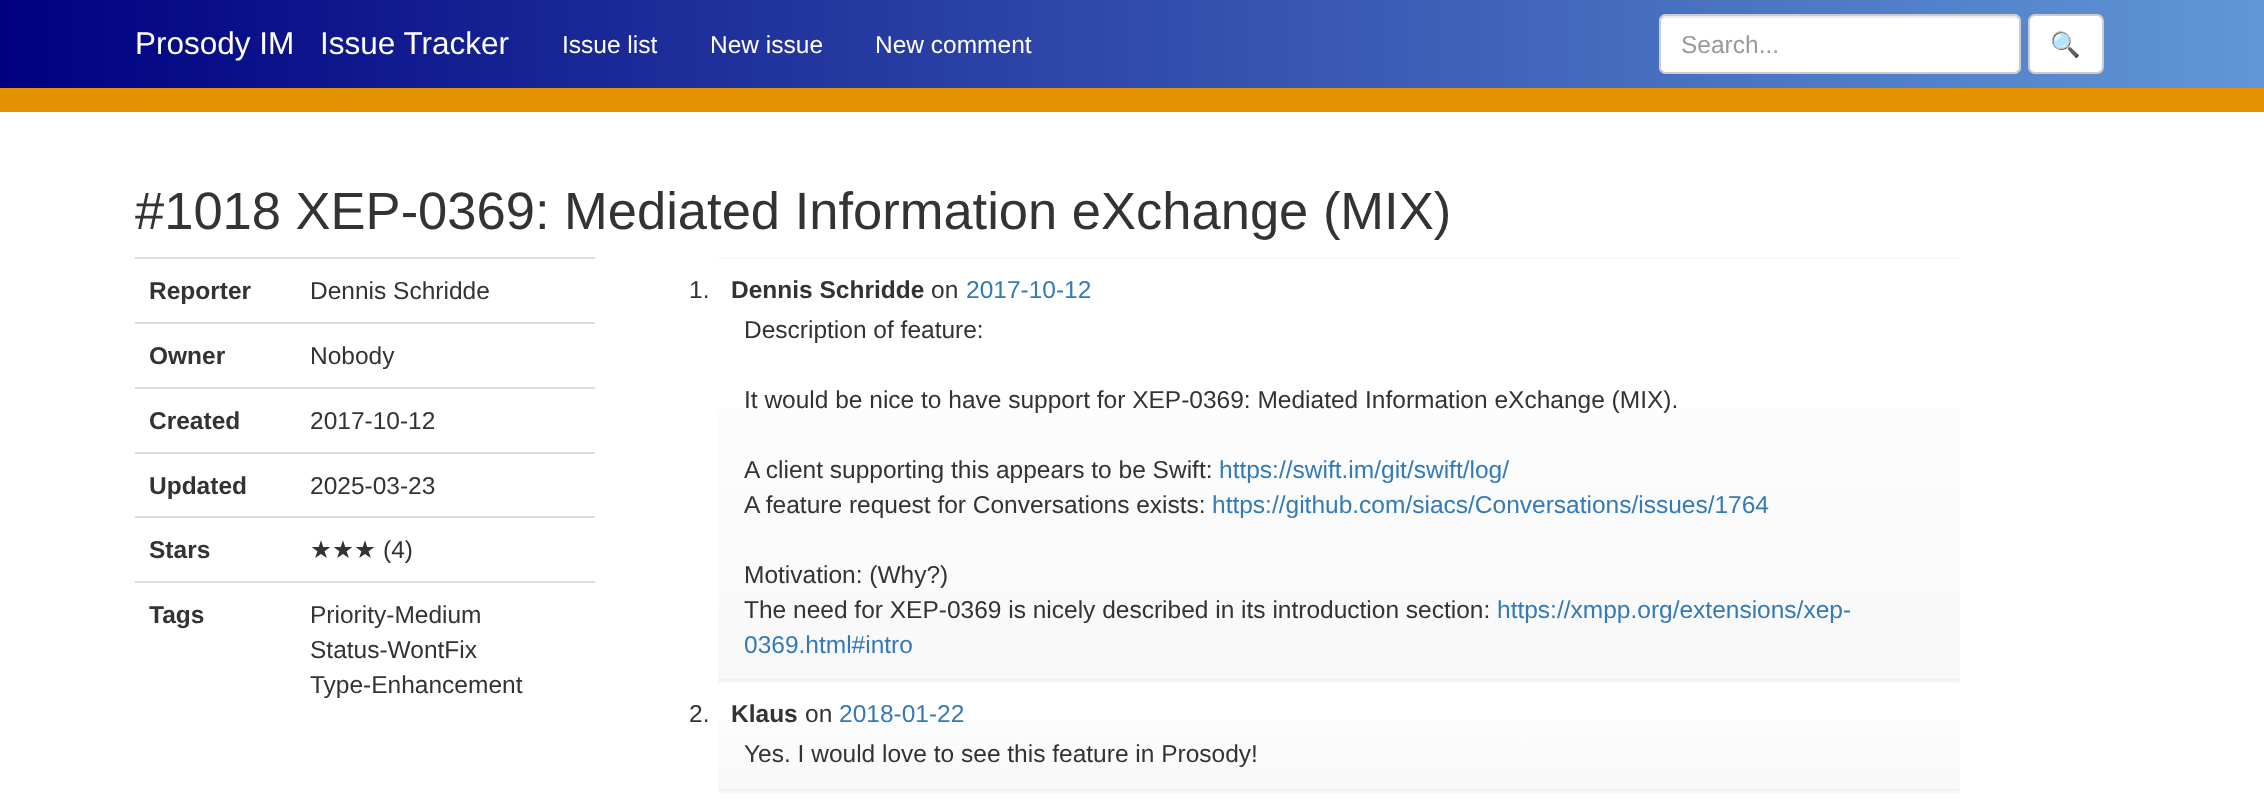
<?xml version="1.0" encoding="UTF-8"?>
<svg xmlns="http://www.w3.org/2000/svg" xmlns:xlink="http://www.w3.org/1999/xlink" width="2264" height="810">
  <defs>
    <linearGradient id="g1" gradientUnits="userSpaceOnUse" x1="0" y1="44" x2="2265" y2="44"><stop offset="0" stop-color="#000080" /><stop offset="1" stop-color="#6197d6" /></linearGradient>
    <linearGradient id="g2" gradientUnits="userSpaceOnUse" x1="1339" y1="-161" x2="1339" y2="259"><stop offset="0" stop-color="#ffffff" /><stop offset="1" stop-color="#f8f8f8" /></linearGradient>
    <linearGradient id="g3" gradientUnits="userSpaceOnUse" x1="1339" y1="259" x2="1339" y2="679"><stop offset="0" stop-color="#ffffff" /><stop offset="1" stop-color="#f8f8f8" /></linearGradient>
    <linearGradient id="g4" gradientUnits="userSpaceOnUse" x1="1339" y1="576" x2="1339" y2="683"><stop offset="0" stop-color="#ffffff" /><stop offset="1" stop-color="#f8f8f8" /></linearGradient>
    <linearGradient id="g5" gradientUnits="userSpaceOnUse" x1="1339" y1="682" x2="1339" y2="789"><stop offset="0" stop-color="#ffffff" /><stop offset="1" stop-color="#f8f8f8" /></linearGradient>
    <linearGradient id="g6" gradientUnits="userSpaceOnUse" x1="1339" y1="653" x2="1339" y2="793"><stop offset="0" stop-color="#ffffff" /><stop offset="1" stop-color="#f8f8f8" /></linearGradient>
  </defs>
  <rect width="100%" height="100%" fill="#ffffff" />
  <rect width="2264" height="88" fill="url(#g1)" />
  <rect y="88" width="2264" height="24" fill="#e49200" />
  <rect x="1659" y="14" width="362" height="60" rx="7" fill="#ffffff" />
  <path d="M 1666 18 h 348 c 3 0 6 2 6 5 c 0 -3 -1 -7 -5 -7 h -349 c -4 0 -5 4 -5 7 c 0 -3 2 -5 5 -5 z" fill="#ececec" />
  <rect x="1660" y="15" width="360" height="58" rx="6" fill="none" stroke="#cccccc" stroke-width="2" />
  <rect x="2029" y="15" width="74" height="58" rx="6" fill="#ffffff" stroke="#cccccc" stroke-width="2" />
  <rect x="135" y="257" width="460" height="2" fill="#dddddd" />
  <rect x="135" y="322" width="460" height="2" fill="#dddddd" />
  <rect x="135" y="387" width="460" height="2" fill="#dddddd" />
  <rect x="135" y="452" width="460" height="2" fill="#dddddd" />
  <rect x="135" y="516" width="460" height="2" fill="#dddddd" />
  <rect x="135" y="581" width="460" height="2" fill="#dddddd" />
  <rect x="718" y="257" width="1242" height="2" fill="url(#g2)" />
  <rect x="718" y="409" width="1242" height="270" fill="url(#g3)" />
  <path d="M 1960 681 h -1242 l 1 -2 h 1239 z" fill="#f0f0f0" />
  <rect x="718" y="681" width="1242" height="2" fill="url(#g4)" />
  <rect x="718" y="720" width="1242" height="69" fill="url(#g5)" />
  <path d="M 1960 791 h -1242 l 1 -2 h 1239 z" fill="#f0f0f0" />
  <rect x="718" y="791" width="1242" height="2" fill="url(#g6)" />
  <text x="135" y="54" style="font-family: Liberation Sans; font-size: 31.5px; fill: #ffffff">Prosody IM</text>
  <text x="320" y="54" style="font-family: Liberation Sans; font-size: 31.5px; fill: #ffffff">Issue Tracker</text>
  <text x="562" y="53" style="font-family: Liberation Sans; font-size: 24.5px; fill: #ffffff">Issue list</text>
  <text x="710" y="53" style="font-family: Liberation Sans; font-size: 24.5px; fill: #ffffff">New issue</text>
  <text x="875" y="53" style="font-family: Liberation Sans; font-size: 24.5px; fill: #ffffff">New comment</text>
  <text x="1681" y="53" style="font-family: Liberation Sans; font-size: 24.5px; fill: #999999">Search...</text>
  <text x="2050" y="53" style="font-family: Noto Color Emoji; font-size: 24.5px; fill: #333333">🔍</text>
  <text x="135" y="229" style="font-family: Liberation Sans; font-size: 52.5px; fill: #333333">#1018 XEP-0369: Mediated Information eXchange (MIX)</text>
  <text x="149" y="299" style="font-family: Liberation Sans; font-size: 24.5px; font-weight: bold; fill: #333333">Reporter</text>
  <text x="310" y="299" style="font-family: Liberation Sans; font-size: 24.5px; fill: #333333">Dennis Schridde</text>
  <text x="149" y="364" style="font-family: Liberation Sans; font-size: 24.5px; font-weight: bold; fill: #333333">Owner</text>
  <text x="310" y="364" style="font-family: Liberation Sans; font-size: 24.5px; fill: #333333">Nobody</text>
  <text x="149" y="429" style="font-family: Liberation Sans; font-size: 24.5px; font-weight: bold; fill: #333333">Created</text>
  <text x="310" y="429" style="font-family: Liberation Sans; font-size: 24.5px; fill: #333333">2017-10-12</text>
  <text x="149" y="494" style="font-family: Liberation Sans; font-size: 24.5px; font-weight: bold; fill: #333333">Updated</text>
  <text x="310" y="494" style="font-family: Liberation Sans; font-size: 24.5px; fill: #333333">2025-03-23</text>
  <text x="149" y="558" style="font-family: Liberation Sans; font-size: 24.5px; font-weight: bold; fill: #333333">Stars</text>
  <text x="310" y="558" style="font-family: DejaVu Sans; font-size: 24.5px; fill: #333333">★★★</text>
  <text x="383" y="558" style="font-family: Liberation Sans; font-size: 24.5px; fill: #333333">(4)</text>
  <text x="149" y="623" style="font-family: Liberation Sans; font-size: 24.5px; font-weight: bold; fill: #333333">Tags</text>
  <text x="310" y="623" style="font-family: Liberation Sans; font-size: 24.5px; fill: #333333">Priority-Medium</text>
  <text x="310" y="658" style="font-family: Liberation Sans; font-size: 24.5px; fill: #333333">Status-WontFix</text>
  <text x="310" y="693" style="font-family: Liberation Sans; font-size: 24.5px; fill: #333333">Type-Enhancement</text>
  <text x="689" y="298" style="font-family: Liberation Sans; font-size: 24.5px; fill: #333333">1.</text>
  <text x="731" y="298" style="font-family: Liberation Sans; font-size: 24.5px; font-weight: bold; fill: #333333">Dennis Schridde</text>
  <text x="931" y="298" style="font-family: Liberation Sans; font-size: 24.5px; fill: #333333">on</text>
  <text x="966" y="298" style="font-family: Liberation Sans; font-size: 24.5px; fill: #337ab7">2017-10-12</text>
  <text x="744" y="338" style="font-family: Liberation Sans; font-size: 24.5px; fill: #333333">Description of feature:</text>
  <text x="744" y="408" style="font-family: Liberation Sans; font-size: 24.5px; fill: #333333">It would be nice to have support for XEP-0369: Mediated Information eXchange (MIX).</text>
  <text x="744" y="478" style="font-family: Liberation Sans; font-size: 24.5px; fill: #333333">A client supporting this appears to be Swift:</text>
  <text x="1219" y="478" style="font-family: Liberation Sans; font-size: 24.5px; fill: #337ab7">https://swift.im/git/swift/log/</text>
  <text x="744" y="513" style="font-family: Liberation Sans; font-size: 24.5px; fill: #333333">A feature request for Conversations exists:</text>
  <text x="1212" y="513" style="font-family: Liberation Sans; font-size: 24.5px; fill: #337ab7">https://github.com/siacs/Conversations/issues/1764</text>
  <text x="744" y="583" style="font-family: Liberation Sans; font-size: 24.5px; fill: #333333">Motivation: (Why?)</text>
  <text x="744" y="618" style="font-family: Liberation Sans; font-size: 24.5px; fill: #333333">The need for XEP-0369 is nicely described in its introduction section:</text>
  <text x="1497" y="618" style="font-family: Liberation Sans; font-size: 24.5px; fill: #337ab7">https://xmpp.org/extensions/xep-</text>
  <text x="744" y="653" style="font-family: Liberation Sans; font-size: 24.5px; fill: #337ab7">0369.html#intro</text>
  <text x="689" y="722" style="font-family: Liberation Sans; font-size: 24.5px; fill: #333333">2.</text>
  <text x="731" y="722" style="font-family: Liberation Sans; font-size: 24.5px; font-weight: bold; fill: #333333">Klaus</text>
  <text x="805" y="722" style="font-family: Liberation Sans; font-size: 24.5px; fill: #333333">on</text>
  <text x="839" y="722" style="font-family: Liberation Sans; font-size: 24.5px; fill: #337ab7">2018-01-22</text>
  <text x="744" y="762" style="font-family: Liberation Sans; font-size: 24.5px; fill: #333333">Yes. I would love to see this feature in Prosody!</text>
</svg>
